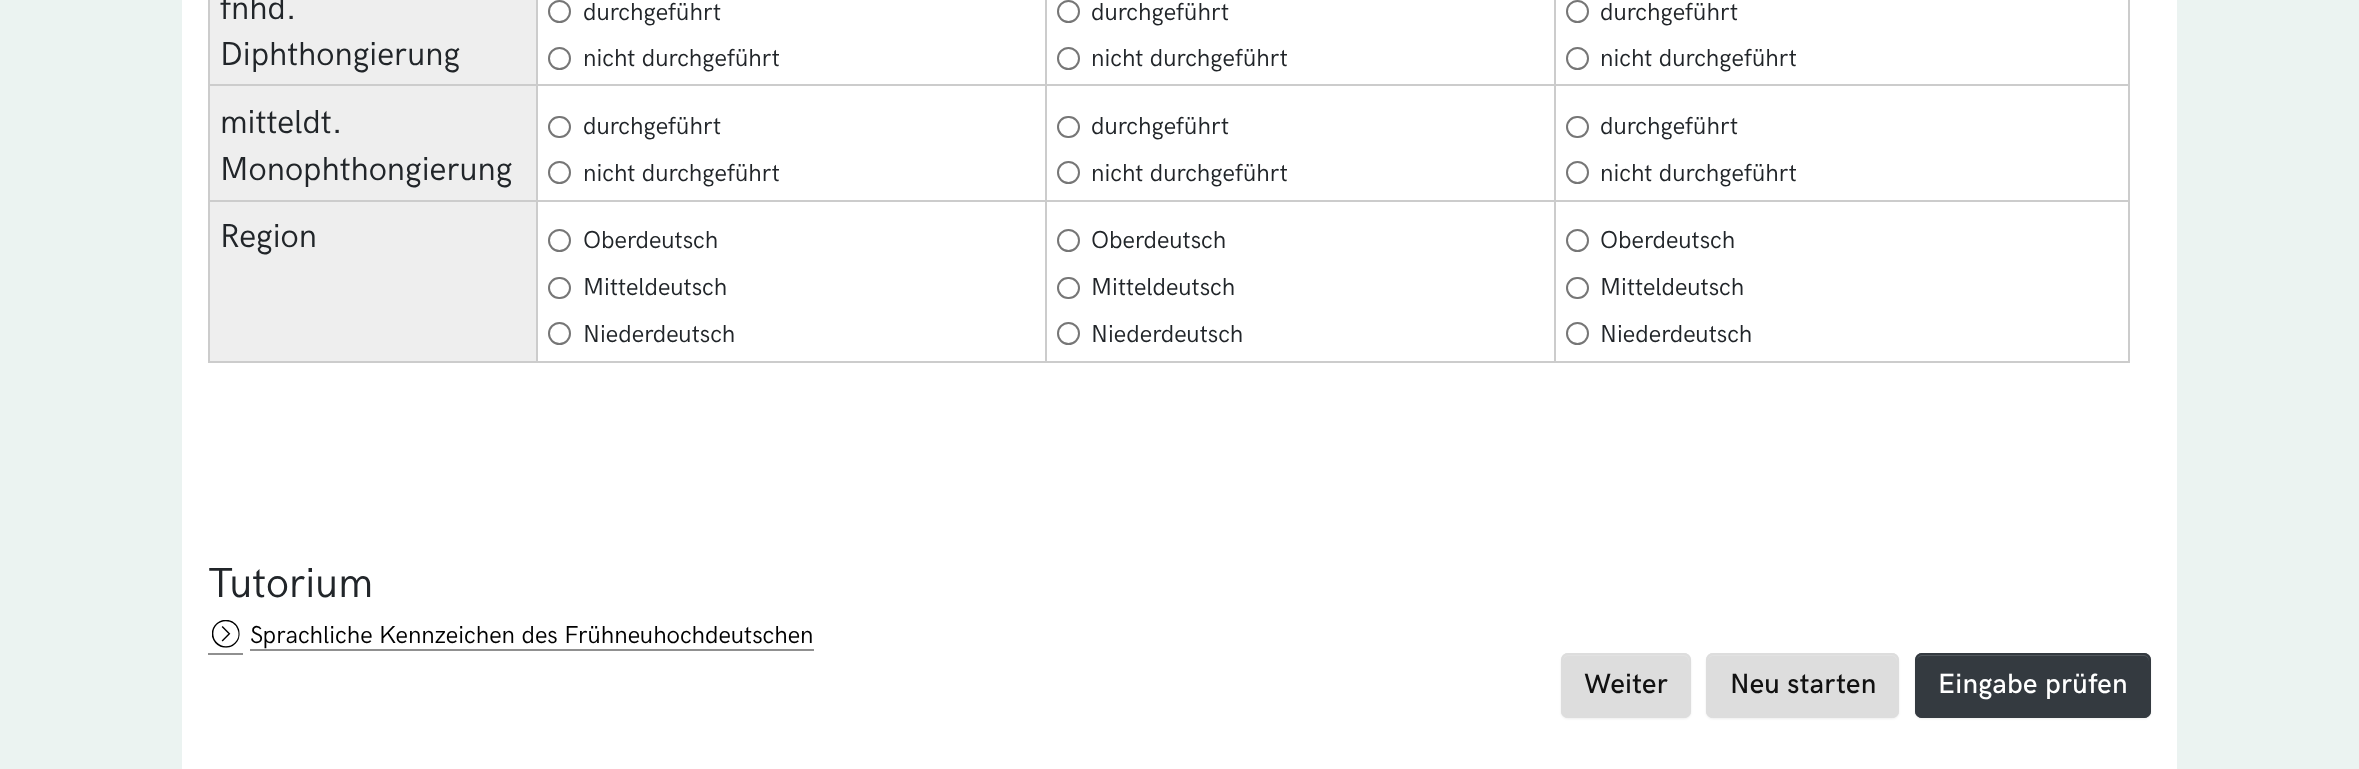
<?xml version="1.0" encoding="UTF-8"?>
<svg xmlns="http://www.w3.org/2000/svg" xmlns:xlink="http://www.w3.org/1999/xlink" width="2359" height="769">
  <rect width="100%" height="100%" fill="#ebf3f1" />
  <rect x="182" width="1995" height="769" fill="#ffffff" />
  <rect x="210" width="326" height="84" fill="#eeeeee" />
  <rect x="1554" y="84" width="576" height="2" fill="#cccccc" />
  <rect x="1554" y="200" width="576" height="2" fill="#cccccc" />
  <rect x="2128" y="200" width="2" height="162" fill="#cccccc" />
  <rect x="1554" y="361" width="576" height="2" fill="#cccccc" />
  <rect x="1554" y="200" width="2" height="162" fill="#cccccc" />
  <rect x="1045" y="200" width="511" height="2" fill="#cccccc" />
  <rect x="1554" y="84" width="2" height="117" fill="#cccccc" />
  <rect x="1045" y="84" width="511" height="2" fill="#cccccc" />
  <rect x="1045" y="361" width="511" height="2" fill="#cccccc" />
  <rect x="1045" y="200" width="2" height="162" fill="#cccccc" />
  <rect x="536" y="200" width="511" height="2" fill="#cccccc" />
  <rect x="1045" y="84" width="2" height="117" fill="#cccccc" />
  <rect x="536" y="84" width="511" height="2" fill="#cccccc" />
  <rect x="536" y="361" width="511" height="2" fill="#cccccc" />
  <rect x="536" y="200" width="2" height="162" fill="#cccccc" />
  <rect x="208" y="200" width="329" height="2" fill="#cccccc" />
  <rect x="536" y="84" width="2" height="117" fill="#cccccc" />
  <rect x="208" y="84" width="329" height="2" fill="#cccccc" />
  <rect x="536" width="2" height="86" fill="#cccccc" />
  <circle cx="559.5" cy="11.5" r="10.5" fill="none" stroke="#767676" stroke-width="2" />
  <circle cx="559.5" cy="58.5" r="10.5" fill="none" stroke="#767676" stroke-width="2" />
  <rect x="1045" width="2" height="86" fill="#cccccc" />
  <circle cx="1068.5" cy="11.5" r="10.5" fill="none" stroke="#767676" stroke-width="2" />
  <circle cx="1068.5" cy="58.5" r="10.5" fill="none" stroke="#767676" stroke-width="2" />
  <rect x="1554" width="2" height="86" fill="#cccccc" />
  <circle cx="1577.5" cy="11.5" r="10.5" fill="none" stroke="#767676" stroke-width="2" />
  <circle cx="1577.5" cy="58.5" r="10.5" fill="none" stroke="#767676" stroke-width="2" />
  <rect x="210" y="86" width="326" height="114" fill="#eeeeee" />
  <rect x="208" y="361" width="329" height="2" fill="#cccccc" />
  <rect x="208" y="200" width="2" height="162" fill="#cccccc" />
  <rect x="208" width="2" height="201" fill="#cccccc" />
  <rect x="549" y="117" width="21" height="20" rx="10" fill="none" stroke="#767676" stroke-width="2" />
  <circle cx="559.5" cy="172.5" r="10.5" fill="none" stroke="#767676" stroke-width="2" />
  <rect x="1058" y="117" width="21" height="20" rx="10" fill="none" stroke="#767676" stroke-width="2" />
  <circle cx="1068.5" cy="172.5" r="10.5" fill="none" stroke="#767676" stroke-width="2" />
  <rect x="2128" width="2" height="201" fill="#cccccc" />
  <rect x="1567" y="117" width="21" height="20" rx="10" fill="none" stroke="#767676" stroke-width="2" />
  <circle cx="1577.5" cy="172.5" r="10.5" fill="none" stroke="#767676" stroke-width="2" />
  <rect x="210" y="202" width="326" height="159" fill="#eeeeee" />
  <circle cx="559.5" cy="240.5" r="10.5" fill="none" stroke="#767676" stroke-width="2" />
  <rect x="549" y="278" width="21" height="20" rx="10" fill="none" stroke="#767676" stroke-width="2" />
  <circle cx="559.5" cy="333.5" r="10.5" fill="none" stroke="#767676" stroke-width="2" />
  <circle cx="1068.5" cy="240.5" r="10.5" fill="none" stroke="#767676" stroke-width="2" />
  <rect x="1058" y="278" width="21" height="20" rx="10" fill="none" stroke="#767676" stroke-width="2" />
  <circle cx="1068.5" cy="333.5" r="10.5" fill="none" stroke="#767676" stroke-width="2" />
  <circle cx="1577.5" cy="240.5" r="10.5" fill="none" stroke="#767676" stroke-width="2" />
  <rect x="1567" y="278" width="21" height="20" rx="10" fill="none" stroke="#767676" stroke-width="2" />
  <circle cx="1577.5" cy="333.5" r="10.5" fill="none" stroke="#767676" stroke-width="2" />
  <rect x="208" y="653" width="35" height="2" fill="#909090" />
  <rect x="250" y="649" width="564" height="2" fill="#909090" />
  <image x="212" y="620" width="28" height="28" xlink:href="image1.png" />
  <rect x="1561" y="655" width="130" height="64" rx="7" fill="#000000" fill-opacity="0.07" filter="blur(1px)" />
  <rect x="1561" y="653" width="130" height="65" rx="7" fill="#dddddd" />
  <path d="M 1568 656 h 116 c 2 0 5 3 5 6 v -2 c 0 -3 -2 -5 -5 -5 h -116 c -3 0 -5 2 -5 5 v 2 c 0 -3 2 -6 5 -6 z" fill="#e2e2e2" />
  <rect x="1562" y="654" width="128" height="63" rx="6" fill="none" stroke="#dddddd" stroke-width="2" />
  <rect x="1706" y="655" width="193" height="64" rx="7" fill="#000000" fill-opacity="0.07" filter="blur(1px)" />
  <rect x="1706" y="653" width="193" height="65" rx="7" fill="#dddddd" />
  <path d="M 1713 656 h 179 c 3 0 5 3 5 6 v -2 c 0 -3 -2 -5 -5 -5 h -179 c -3 0 -5 2 -5 5 v 2 c 0 -3 2 -6 5 -6 z" fill="#e2e2e2" />
  <rect x="1707" y="654" width="191" height="63" rx="6" fill="none" stroke="#dddddd" stroke-width="2" />
  <rect x="1915" y="655" width="236" height="64" rx="7" fill="#000000" fill-opacity="0.07" filter="blur(1px)" />
  <rect x="1915" y="653" width="236" height="65" rx="7" fill="#343a40" />
  <path d="M 1922 656 h 222 c 3 0 5 3 5 6 c 0 -3 0 -6 -4 -7 h -224 c -4 0 -5 4 -5 7 c 0 -3 3 -6 6 -6 z" fill="#52585d" />
  <rect x="1916" y="654" width="234" height="63" rx="6" fill="none" stroke="#343a40" stroke-width="2" />
  <text x="220" y="19" style="font-family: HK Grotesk; font-size: 33.25px; fill: #212529">fnhd.</text>
  <text x="220" y="65" style="font-family: HK Grotesk; font-size: 33.25px; fill: #212529">Diphthongierung</text>
  <text x="583" y="20" style="font-family: HK Grotesk; font-size: 24.5px; fill: #212529">durchgeführt</text>
  <text x="583" y="66" style="font-family: HK Grotesk; font-size: 24.5px; fill: #212529">nicht durchgeführt</text>
  <text x="1091" y="20" style="font-family: HK Grotesk; font-size: 24.5px; fill: #212529">durchgeführt</text>
  <text x="1091" y="66" style="font-family: HK Grotesk; font-size: 24.5px; fill: #212529">nicht durchgeführt</text>
  <text x="1600" y="20" style="font-family: HK Grotesk; font-size: 24.5px; fill: #212529">durchgeführt</text>
  <text x="1600" y="66" style="font-family: HK Grotesk; font-size: 24.5px; fill: #212529">nicht durchgeführt</text>
  <text x="220" y="133" style="font-family: HK Grotesk; font-size: 33.25px; fill: #212529">mitteldt.</text>
  <text x="220" y="180" style="font-family: HK Grotesk; font-size: 33.25px; fill: #212529">Monophthongierung</text>
  <text x="583" y="134" style="font-family: HK Grotesk; font-size: 24.5px; fill: #212529">durchgeführt</text>
  <text x="583" y="181" style="font-family: HK Grotesk; font-size: 24.5px; fill: #212529">nicht durchgeführt</text>
  <text x="1091" y="134" style="font-family: HK Grotesk; font-size: 24.5px; fill: #212529">durchgeführt</text>
  <text x="1091" y="181" style="font-family: HK Grotesk; font-size: 24.5px; fill: #212529">nicht durchgeführt</text>
  <text x="1600" y="134" style="font-family: HK Grotesk; font-size: 24.5px; fill: #212529">durchgeführt</text>
  <text x="1600" y="181" style="font-family: HK Grotesk; font-size: 24.5px; fill: #212529">nicht durchgeführt</text>
  <text x="220" y="247" style="font-family: HK Grotesk; font-size: 33.25px; fill: #212529">Region</text>
  <text x="583" y="248" style="font-family: HK Grotesk; font-size: 24.5px; fill: #212529">Oberdeutsch</text>
  <text x="583" y="295" style="font-family: HK Grotesk; font-size: 24.5px; fill: #212529">Mitteldeutsch</text>
  <text x="583" y="342" style="font-family: HK Grotesk; font-size: 24.5px; fill: #212529">Niederdeutsch</text>
  <text x="1091" y="248" style="font-family: HK Grotesk; font-size: 24.5px; fill: #212529">Oberdeutsch</text>
  <text x="1091" y="295" style="font-family: HK Grotesk; font-size: 24.5px; fill: #212529">Mitteldeutsch</text>
  <text x="1091" y="342" style="font-family: HK Grotesk; font-size: 24.5px; fill: #212529">Niederdeutsch</text>
  <text x="1600" y="248" style="font-family: HK Grotesk; font-size: 24.5px; fill: #212529">Oberdeutsch</text>
  <text x="1600" y="295" style="font-family: HK Grotesk; font-size: 24.5px; fill: #212529">Mitteldeutsch</text>
  <text x="1600" y="342" style="font-family: HK Grotesk; font-size: 24.5px; fill: #212529">Niederdeutsch</text>
  <text x="208" y="597" style="font-family: HK Grotesk; font-size: 42px; fill: #212529">Tutorium</text>
  <text x="250" y="643" style="font-family: HK Grotesk; font-size: 24.5px; fill: #000000">Sprachliche Kennzeichen des Frühneuhochdeutschen</text>
  <text x="1584" y="693" style="font-family: HK Grotesk; font-size: 28px; font-weight: 500; letter-spacing: 0.25px; fill: #111111">Weiter</text>
  <text x="1730" y="693" style="font-family: HK Grotesk; font-size: 28px; font-weight: 500; letter-spacing: 0.25px; fill: #111111">Neu starten</text>
  <text x="1938" y="693" style="font-family: HK Grotesk; font-size: 28px; font-weight: 500; letter-spacing: 0.25px; fill: #ffffff">Eingabe prüfen</text>
</svg>
